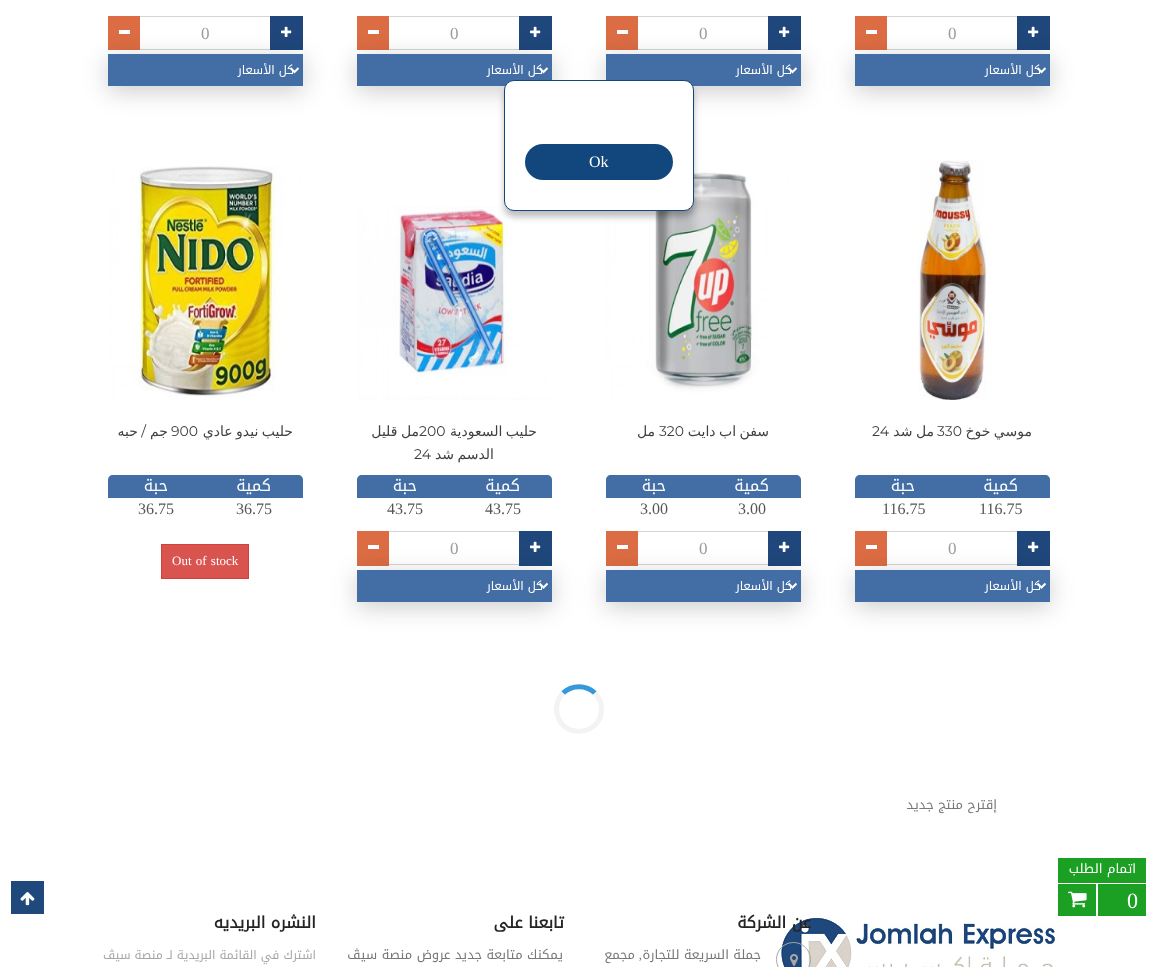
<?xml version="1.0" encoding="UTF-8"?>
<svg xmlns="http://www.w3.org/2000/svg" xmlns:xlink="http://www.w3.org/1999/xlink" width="1157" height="967">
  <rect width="100%" height="100%" fill="#ffffff" />
  <rect x="1017" y="16" width="33" height="34" fill="#1f477b" />
  <image x="1028" y="26" width="11" height="11" xlink:href="image1.png" />
  <rect x="887" y="16" width="130" height="1" fill="#d6d4d4" />
  <rect x="887" y="49" width="130" height="1" fill="#d6d4d4" />
  <rect x="855" y="16" width="32" height="34" fill="#dc6c43" />
  <rect x="866" y="30" width="11" height="4" fill="#ffffff" />
  <rect x="855" y="59" width="195" height="32" fill="#000000" fill-opacity="0.2" filter="blur(12.5px)" />
  <rect x="855" y="54" width="195" height="32" fill="#436ea5" />
  <path d="M 1037.5 68 l 4 4 l 4 -4" fill="none" stroke="#ffffff" stroke-width="2" />
  <rect x="768" y="16" width="33" height="34" fill="#1f477b" />
  <image x="779" y="26" width="11" height="11" xlink:href="image1.png" />
  <rect x="638" y="16" width="130" height="1" fill="#d6d4d4" />
  <rect x="638" y="49" width="130" height="1" fill="#d6d4d4" />
  <rect x="606" y="16" width="32" height="34" fill="#dc6c43" />
  <rect x="617" y="30" width="11" height="4" fill="#ffffff" />
  <rect x="606" y="59" width="195" height="32" fill="#000000" fill-opacity="0.2" filter="blur(12.5px)" />
  <rect x="606" y="54" width="195" height="32" fill="#436ea5" />
  <path d="M 788.5 68 l 4 4 l 4 -4" fill="none" stroke="#ffffff" stroke-width="2" />
  <rect x="519" y="16" width="33" height="34" fill="#1f477b" />
  <image x="530" y="26" width="11" height="11" xlink:href="image1.png" />
  <rect x="389" y="16" width="130" height="1" fill="#d6d4d4" />
  <rect x="389" y="49" width="130" height="1" fill="#d6d4d4" />
  <rect x="357" y="16" width="32" height="34" fill="#dc6c43" />
  <rect x="368" y="30" width="11" height="4" fill="#ffffff" />
  <rect x="357" y="59" width="195" height="32" fill="#000000" fill-opacity="0.2" filter="blur(12.5px)" />
  <rect x="357" y="54" width="195" height="32" fill="#436ea5" />
  <path d="M 539.5 68 l 4 4 l 4 -4" fill="none" stroke="#ffffff" stroke-width="2" />
  <rect x="270" y="16" width="33" height="34" fill="#1f477b" />
  <image x="281" y="26" width="11" height="11" xlink:href="image1.png" />
  <rect x="140" y="16" width="130" height="1" fill="#d6d4d4" />
  <rect x="140" y="49" width="130" height="1" fill="#d6d4d4" />
  <rect x="108" y="16" width="32" height="34" fill="#dc6c43" />
  <rect x="119" y="30" width="11" height="4" fill="#ffffff" />
  <rect x="108" y="59" width="195" height="32" fill="#000000" fill-opacity="0.2" filter="blur(12.5px)" />
  <rect x="108" y="54" width="195" height="32" fill="#436ea5" />
  <path d="M 290.5 68 l 4 4 l 4 -4" fill="none" stroke="#ffffff" stroke-width="2" />
  <image x="855" y="160" width="195" height="240" xlink:href="image2.png" />
  <path d="M 952 475 h 93 c 3 0 5 2 5 5 v 18 h -98 z" fill="#436ea5" />
  <path d="M 860 475 h 92 v 23 h -97 v -18 c 0 -3 2 -5 5 -5 z" fill="#436ea5" />
  <rect x="1017" y="531" width="33" height="35" fill="#1f477b" />
  <image x="1028" y="541" width="11" height="11" xlink:href="image1.png" />
  <rect x="887" y="531" width="130" height="1" fill="#d6d4d4" />
  <rect x="887" y="564" width="130" height="1" fill="#d6d4d4" />
  <rect x="855" y="531" width="32" height="35" fill="#dc6c43" />
  <rect x="866" y="545" width="11" height="4" fill="#ffffff" />
  <rect x="855" y="575" width="195" height="32" fill="#000000" fill-opacity="0.2" filter="blur(12.5px)" />
  <rect x="855" y="570" width="195" height="32" fill="#436ea5" />
  <path d="M 1037.5 583.5 l 4 4 l 4 -4" fill="none" stroke="#ffffff" stroke-width="2" />
  <image x="606" y="172" width="195" height="228" xlink:href="image3.png" />
  <path d="M 703 475 h 93 c 3 0 5 2 5 5 v 18 h -98 z" fill="#436ea5" />
  <path d="M 611 475 h 92 v 23 h -97 v -18 c 0 -3 2 -5 5 -5 z" fill="#436ea5" />
  <rect x="768" y="531" width="33" height="35" fill="#1f477b" />
  <image x="779" y="541" width="11" height="11" xlink:href="image1.png" />
  <rect x="638" y="531" width="130" height="1" fill="#d6d4d4" />
  <rect x="638" y="564" width="130" height="1" fill="#d6d4d4" />
  <rect x="606" y="531" width="32" height="35" fill="#dc6c43" />
  <rect x="617" y="545" width="11" height="4" fill="#ffffff" />
  <rect x="606" y="575" width="195" height="32" fill="#000000" fill-opacity="0.2" filter="blur(12.5px)" />
  <rect x="606" y="570" width="195" height="32" fill="#436ea5" />
  <path d="M 788.5 583.5 l 4 4 l 4 -4" fill="none" stroke="#ffffff" stroke-width="2" />
  <image x="357" y="206" width="195" height="194" xlink:href="image4.png" />
  <path d="M 454 475 h 93 c 3 0 5 2 5 5 v 18 h -98 z" fill="#436ea5" />
  <path d="M 362 475 h 92 v 23 h -97 v -18 c 0 -3 2 -5 5 -5 z" fill="#436ea5" />
  <rect x="519" y="531" width="33" height="35" fill="#1f477b" />
  <image x="530" y="541" width="11" height="11" xlink:href="image1.png" />
  <rect x="389" y="531" width="130" height="1" fill="#d6d4d4" />
  <rect x="389" y="564" width="130" height="1" fill="#d6d4d4" />
  <rect x="357" y="531" width="32" height="35" fill="#dc6c43" />
  <rect x="368" y="545" width="11" height="4" fill="#ffffff" />
  <rect x="357" y="575" width="195" height="32" fill="#000000" fill-opacity="0.2" filter="blur(12.5px)" />
  <rect x="357" y="570" width="195" height="32" fill="#436ea5" />
  <path d="M 539.5 583.5 l 4 4 l 4 -4" fill="none" stroke="#ffffff" stroke-width="2" />
  <image x="108" y="166" width="195" height="234" xlink:href="image5.png" />
  <path d="M 205 475 h 93 c 3 0 5 2 5 5 v 18 h -98 z" fill="#436ea5" />
  <path d="M 113 475 h 92 v 23 h -97 v -18 c 0 -3 2 -5 5 -5 z" fill="#436ea5" />
  <rect x="161.5" y="544.5" width="87" height="34" fill="#d9534f" stroke="#d43f3a" />
  <path d="M 563 693 c 9 -8.5 23 -8.5 32 0" fill="none" stroke="#3498db" stroke-width="5" />
  <path d="M 595 693 c 4 4.5 6.5 10 6.5 16 c 0 27 -39.5 30.5 -44.5 4.5 c -1.5 -7.5 1 -15 6 -20.5" fill="none" stroke="#f3f3f3" stroke-width="5" />
  <rect x="504" y="86" width="190" height="131" rx="10" fill="#000000" fill-opacity="0.25" filter="blur(3px)" />
  <rect x="504.5" y="80.5" width="189" height="130" rx="9.5" fill="#ffffff" stroke="#12477d" />
  <rect x="525" y="144" width="148" height="36" rx="18" fill="#12477d" />
  <rect x="1058" y="858" width="88" height="25" fill="#1ba024" />
  <image x="780" y="915" width="279" height="52" xlink:href="image7.png" />
  <rect x="1058" y="884" width="88" height="32" fill="#1ba024" />
  <rect x="1097.5" y="883.5" width="49" height="33" fill="none" stroke="#ffffff" />
  <rect x="1057.5" y="883.5" width="39" height="33" fill="none" stroke="#ffffff" />
  <image x="1068" y="891" width="19" height="17" xlink:href="image6.png" />
  <circle cx="793.5" cy="959.5" r="17" fill="none" stroke="#a7a7a7" />
  <image x="790" y="954" width="8" height="12" xlink:href="image8.png" />
  <rect x="11" y="881" width="33" height="33" fill="#1f487c" />
  <image x="20" y="892" width="15" height="14" xlink:href="image9.png" />
  <text x="948" y="39" style="font-family: Liberation Serif; font-size: 17px; fill: #9c9b9b">0</text>
  <text x="1041" y="74" style="font-family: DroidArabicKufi; font-size: 12px; direction: rtl; fill: #ffffff">كل الأسعار</text>
  <text x="699" y="39" style="font-family: Liberation Serif; font-size: 17px; fill: #9c9b9b">0</text>
  <text x="792" y="74" style="font-family: DroidArabicKufi; font-size: 12px; direction: rtl; fill: #ffffff">كل الأسعار</text>
  <text x="450" y="39" style="font-family: Liberation Serif; font-size: 17px; fill: #9c9b9b">0</text>
  <text x="543" y="74" style="font-family: DroidArabicKufi; font-size: 12px; direction: rtl; fill: #ffffff">كل الأسعار</text>
  <text x="201" y="39" style="font-family: Liberation Serif; font-size: 17px; fill: #9c9b9b">0</text>
  <text x="294" y="74" style="font-family: DroidArabicKufi; font-size: 12px; direction: rtl; fill: #ffffff">كل الأسعار</text>
  <text x="1032" y="436" word-spacing="-1" style="font-family: DejaVu Sans; font-size: 14px; direction: rtl; fill: #3f3f3f">موسي خوخ</text>
  <text x="937" y="436" style="font-family: Montserrat; font-size: 14px; fill: #3f3f3f">330</text>
  <text x="934" y="436" word-spacing="-1" style="font-family: DejaVu Sans; font-size: 14px; direction: rtl; fill: #3f3f3f">مل شد</text>
  <text x="872" y="436" style="font-family: Montserrat; font-size: 14px; fill: #3f3f3f">24</text>
  <text x="1018" y="491" style="font-family: DroidArabicKufi; font-size: 16px; direction: rtl; fill: #ffffff">كمية</text>
  <text x="915" y="491" style="font-family: DroidArabicKufi; font-size: 16px; direction: rtl; fill: #ffffff">حبة</text>
  <text x="979" y="514" style="font-family: Liberation Serif; font-size: 16px; fill: #555555">116.75</text>
  <text x="882" y="514" style="font-family: Liberation Serif; font-size: 16px; fill: #555555">116.75</text>
  <text x="948" y="554" style="font-family: Liberation Serif; font-size: 17px; fill: #9c9b9b">0</text>
  <text x="1041" y="590" style="font-family: DroidArabicKufi; font-size: 12px; direction: rtl; fill: #ffffff">كل الأسعار</text>
  <text x="769" y="436" word-spacing="-1" style="font-family: DejaVu Sans; font-size: 14px; direction: rtl; fill: #3f3f3f">سفن اب دايت</text>
  <text x="659" y="436" style="font-family: Montserrat; font-size: 14px; fill: #3f3f3f">320</text>
  <text x="655" y="436" style="font-family: DejaVu Sans; font-size: 14px; direction: rtl; fill: #3f3f3f">مل</text>
  <text x="769" y="491" style="font-family: DroidArabicKufi; font-size: 16px; direction: rtl; fill: #ffffff">كمية</text>
  <text x="666" y="491" style="font-family: DroidArabicKufi; font-size: 16px; direction: rtl; fill: #ffffff">حبة</text>
  <text x="738" y="514" style="font-family: Liberation Serif; font-size: 16px; fill: #555555">3.00</text>
  <text x="640" y="514" style="font-family: Liberation Serif; font-size: 16px; fill: #555555">3.00</text>
  <text x="699" y="554" style="font-family: Liberation Serif; font-size: 17px; fill: #9c9b9b">0</text>
  <text x="792" y="590" style="font-family: DroidArabicKufi; font-size: 12px; direction: rtl; fill: #ffffff">كل الأسعار</text>
  <text x="537" y="436" word-spacing="-1" style="font-family: DejaVu Sans; font-size: 14px; direction: rtl; fill: #3f3f3f">حليب السعودية</text>
  <text x="419" y="436" style="font-family: Montserrat; font-size: 14px; fill: #3f3f3f">200</text>
  <text x="419" y="436" word-spacing="-1" style="font-family: DejaVu Sans; font-size: 14px; direction: rtl; fill: #3f3f3f">مل قليل</text>
  <text x="494" y="459" word-spacing="-1" style="font-family: DejaVu Sans; font-size: 14px; direction: rtl; fill: #3f3f3f">الدسم شد</text>
  <text x="414" y="459" style="font-family: Montserrat; font-size: 14px; fill: #3f3f3f">24</text>
  <text x="520" y="491" style="font-family: DroidArabicKufi; font-size: 16px; direction: rtl; fill: #ffffff">كمية</text>
  <text x="417" y="491" style="font-family: DroidArabicKufi; font-size: 16px; direction: rtl; fill: #ffffff">حبة</text>
  <text x="485" y="514" style="font-family: Liberation Serif; font-size: 16px; fill: #555555">43.75</text>
  <text x="387" y="514" style="font-family: Liberation Serif; font-size: 16px; fill: #555555">43.75</text>
  <text x="450" y="554" style="font-family: Liberation Serif; font-size: 17px; fill: #9c9b9b">0</text>
  <text x="543" y="590" style="font-family: DroidArabicKufi; font-size: 12px; direction: rtl; fill: #ffffff">كل الأسعار</text>
  <text x="293" y="436" word-spacing="-1" style="font-family: DejaVu Sans; font-size: 14px; direction: rtl; fill: #3f3f3f">حليب نيدو عادي</text>
  <text x="171" y="436" style="font-family: Montserrat; font-size: 14px; fill: #3f3f3f">900</text>
  <text x="168" y="436" style="font-family: DejaVu Sans; font-size: 14px; direction: rtl; fill: #3f3f3f">جم</text>
  <text x="146" y="436" style="font-family: Montserrat; font-size: 14px; direction: rtl; fill: #3f3f3f">/</text>
  <text x="138" y="436" style="font-family: DejaVu Sans; font-size: 14px; direction: rtl; fill: #3f3f3f">حبه</text>
  <text x="271" y="491" style="font-family: DroidArabicKufi; font-size: 16px; direction: rtl; fill: #ffffff">كمية</text>
  <text x="168" y="491" style="font-family: DroidArabicKufi; font-size: 16px; direction: rtl; fill: #ffffff">حبة</text>
  <text x="236" y="514" style="font-family: Liberation Serif; font-size: 16px; fill: #555555">36.75</text>
  <text x="138" y="514" style="font-family: Liberation Serif; font-size: 16px; fill: #555555">36.75</text>
  <text x="172" y="565" word-spacing="1" style="font-family: Liberation Serif; font-size: 13px; fill: #ffffff">Out of stock</text>
  <text x="997" y="809" style="font-family: DroidArabicKufi; font-size: 13px; direction: rtl; fill: #777777">إقترح منتج جديد</text>
  <text x="589" y="167" style="font-family: Liberation Serif; font-size: 16px; fill: #ffffff">Ok</text>
  <text x="1136" y="873" style="font-family: DroidArabicKufi; font-size: 13px; direction: rtl; fill: #ffffff">اتمام الطلب</text>
  <text x="1127" y="908" style="font-family: Liberation Serif; font-size: 22px; fill: #ffffff">0</text>
  <text x="811" y="928" style="font-family: DroidArabicKufi; font-size: 16px; font-weight: bold; direction: rtl; fill: #252525">عن الشركة</text>
  <text x="761" y="959" style="font-family: DroidArabicKufi; font-size: 13px; direction: rtl; fill: #777777">جملة السريعة للتجارة</text>
  <text x="642" y="959" style="font-family: Liberation Serif; font-size: 13px; direction: rtl; fill: #777777">,</text>
  <text x="635" y="959" style="font-family: DroidArabicKufi; font-size: 13px; direction: rtl; fill: #777777">مجمع</text>
  <text x="564" y="928" style="font-family: DroidArabicKufi; font-size: 16px; font-weight: bold; direction: rtl; fill: #252525">تابعنا على</text>
  <text x="563" y="959" style="font-family: DroidArabicKufi; font-size: 13px; direction: rtl; fill: #777777">يمكنك متابعة جديد عروض منصة سيڤ</text>
  <text x="316" y="928" style="font-family: DroidArabicKufi; font-size: 16px; font-weight: bold; direction: rtl; fill: #252525">النشره البريديه</text>
  <text x="316" y="959" style="font-family: DroidArabicKufi; font-size: 12px; direction: rtl; fill: #a7a7a7">اشترك في القائمة البريدية لـ منصة سيڤ</text>
</svg>
